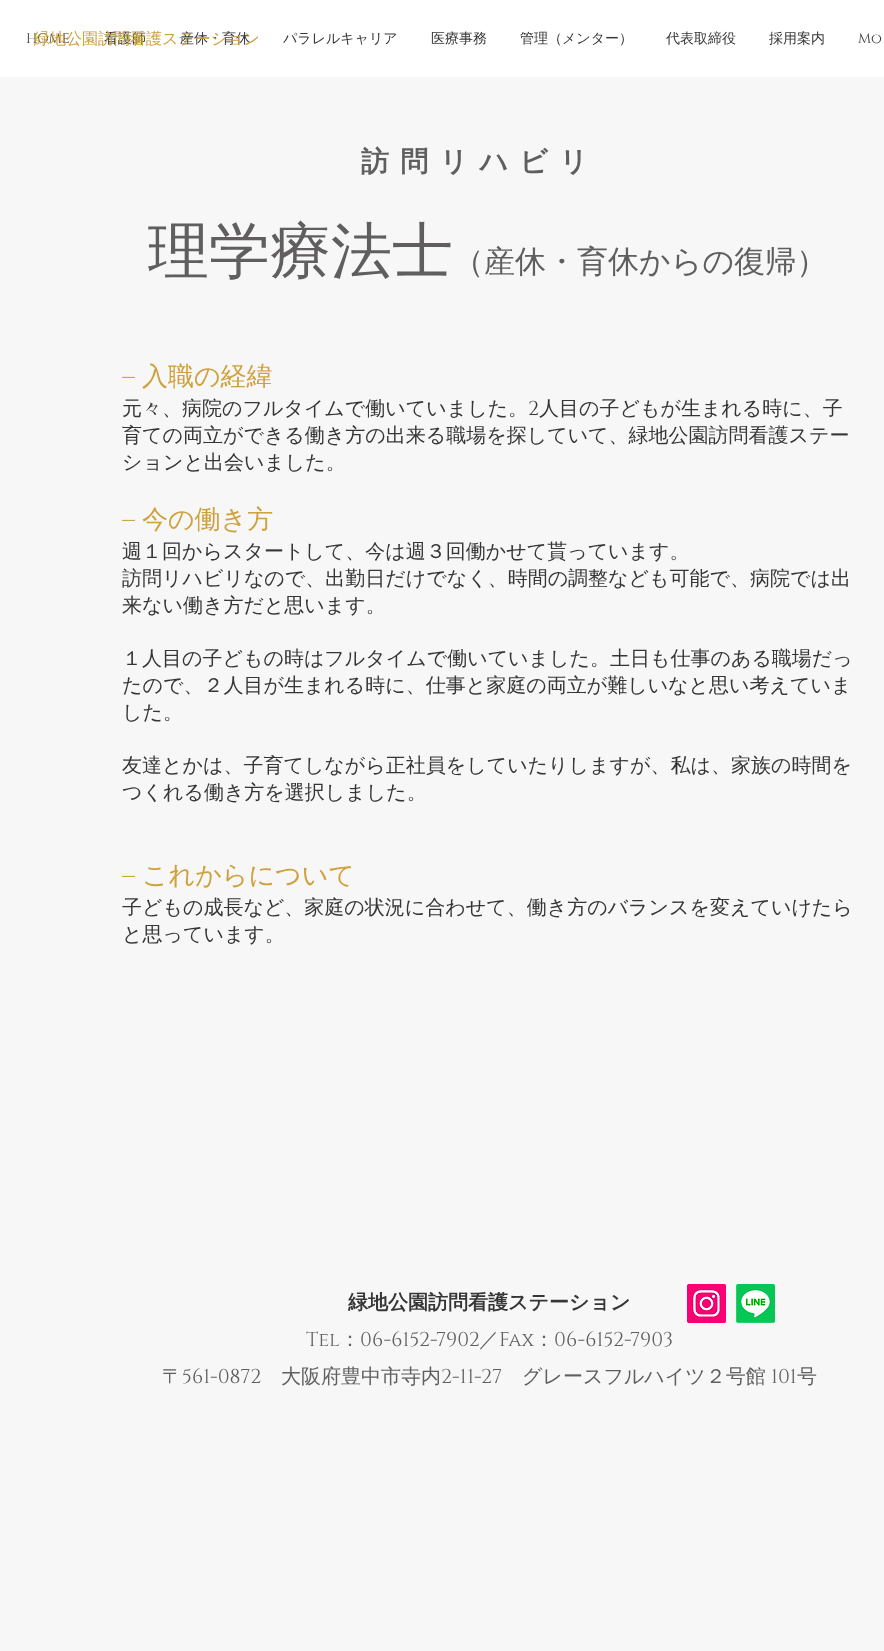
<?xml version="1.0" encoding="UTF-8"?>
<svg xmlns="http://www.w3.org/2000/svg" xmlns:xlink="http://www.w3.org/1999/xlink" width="884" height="1651">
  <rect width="100%" height="100%" fill="#f7f7f7" />
  <rect width="884" height="77" fill="#ffffff" />
  <image x="687" y="1284" width="39" height="39" xlink:href="image1.png" />
  <image x="736" y="1284" width="39" height="39" xlink:href="image2.png" />
  <text x="26" y="43" style="font-family: Cinzel; font-size: 14px; fill: #363636">HOME</text>
  <text x="104" y="43" style="font-family: WenQuanYi Zen Hei; font-size: 14px; font-weight: 500; fill: #363636">看護師</text>
  <text x="180" y="43" style="font-family: WenQuanYi Zen Hei; font-size: 14px; font-weight: 500; fill: #363636">産休・育休</text>
  <text x="283" y="43" style="font-family: WenQuanYi Zen Hei; font-size: 14px; font-weight: 500; fill: #363636">パラレルキャリア</text>
  <text x="431" y="43" style="font-family: WenQuanYi Zen Hei; font-size: 14px; font-weight: 500; fill: #363636">医療事務</text>
  <text x="520" y="43" style="font-family: WenQuanYi Zen Hei; font-size: 14px; font-weight: 500; fill: #363636">管理（メンター）</text>
  <text x="666" y="43" style="font-family: WenQuanYi Zen Hei; font-size: 14px; font-weight: 500; fill: #363636">代表取締役</text>
  <text x="769" y="43" style="font-family: WenQuanYi Zen Hei; font-size: 14px; font-weight: 500; fill: #363636">採用案内</text>
  <text x="858" y="43" style="font-family: Cinzel; font-size: 14px; fill: #363636">Mo</text>
  <text x="34" y="44" style="font-family: WenQuanYi Zen Hei; font-size: 16px; font-weight: 500; fill: #cfa13c">緑地公園訪問看護ステーション</text>
  <text x="361" y="171" style="font-family: WenQuanYi Zen Hei; font-size: 28px; font-weight: bold; letter-spacing: 11.25px; fill: #605e5e">訪問リハビリ</text>
  <text x="148" y="272" style="font-family: WenQuanYi Zen Hei; font-size: 61px; font-weight: 500; fill: #605e5e">理学療法士</text>
  <text x="453" y="272" style="font-family: WenQuanYi Zen Hei; font-size: 31px; font-weight: 500; fill: #605e5e">（産休・育休からの復帰）</text>
  <text x="122" y="385" style="font-family: Cinzel; font-size: 26px; fill: #cfa13c">–</text>
  <text x="142" y="385" style="font-family: WenQuanYi Zen Hei; font-size: 26px; font-weight: 500; fill: #cfa13c">入職の経緯</text>
  <text x="122" y="415" style="font-family: WenQuanYi Zen Hei; font-size: 20px; font-weight: 500; fill: #363636">元々、病院のフルタイムで働いていました。</text>
  <text x="528" y="415" style="font-family: Cinzel; font-size: 20px; fill: #363636">2</text>
  <text x="539" y="415" style="font-family: WenQuanYi Zen Hei; font-size: 20px; font-weight: 500; fill: #363636">人目の子どもが生まれる時に、子</text>
  <text x="122" y="442" style="font-family: WenQuanYi Zen Hei; font-size: 20px; font-weight: 500; fill: #363636">育ての両立ができる働き方の出来る職場を探していて、緑地公園訪問看護ステー</text>
  <text x="122" y="469" style="font-family: WenQuanYi Zen Hei; font-size: 20px; font-weight: 500; fill: #363636">ションと出会いました。</text>
  <text x="122" y="528" style="font-family: Cinzel; font-size: 26px; fill: #cfa13c">–</text>
  <text x="142" y="528" style="font-family: WenQuanYi Zen Hei; font-size: 26px; font-weight: 500; fill: #cfa13c">今の働き方</text>
  <text x="122" y="558" style="font-family: WenQuanYi Zen Hei; font-size: 20px; font-weight: 500; fill: #363636">週１回からスタートして、今は週３回働かせて貰っています。</text>
  <text x="122" y="585" style="font-family: WenQuanYi Zen Hei; font-size: 20px; font-weight: 500; fill: #363636">訪問リハビリなので、出勤日だけでなく、時間の調整なども可能で、病院では出</text>
  <text x="122" y="612" style="font-family: WenQuanYi Zen Hei; font-size: 20px; font-weight: 500; fill: #363636">来ない働き方だと思います。</text>
  <text x="122" y="665" style="font-family: WenQuanYi Zen Hei; font-size: 20px; font-weight: 500; fill: #363636">１人目の子どもの時はフルタイムで働いていました。土日も仕事のある職場だっ</text>
  <text x="122" y="692" style="font-family: WenQuanYi Zen Hei; font-size: 20px; font-weight: 500; fill: #363636">たので、２人目が生まれる時に、仕事と家庭の両立が難しいなと思い考えていま</text>
  <text x="122" y="719" style="font-family: WenQuanYi Zen Hei; font-size: 20px; font-weight: 500; fill: #363636">した。</text>
  <text x="122" y="772" style="font-family: WenQuanYi Zen Hei; font-size: 20px; font-weight: 500; fill: #363636">友達とかは、子育てしながら正社員をしていたりしますが、私は、家族の時間を</text>
  <text x="122" y="799" style="font-family: WenQuanYi Zen Hei; font-size: 20px; font-weight: 500; fill: #363636">つくれる働き方を選択しました。</text>
  <text x="122" y="884" style="font-family: Cinzel; font-size: 26px; fill: #cfa13c">–</text>
  <text x="142" y="884" style="font-family: WenQuanYi Zen Hei; font-size: 26px; font-weight: 500; fill: #cfa13c">これからについて</text>
  <text x="122" y="914" style="font-family: WenQuanYi Zen Hei; font-size: 20px; font-weight: 500; fill: #363636">子どもの成長など、家庭の状況に合わせて、働き方のバランスを変えていけたら</text>
  <text x="122" y="941" style="font-family: WenQuanYi Zen Hei; font-size: 20px; font-weight: 500; fill: #363636">と思っています。</text>
  <text x="348" y="1309" style="font-family: WenQuanYi Zen Hei; font-size: 20px; font-weight: bold; fill: #363636">緑地公園訪問看護ステーション</text>
  <text x="306" y="1346" style="font-family: Cinzel; font-size: 20px; fill: #605e5e">Tel</text>
  <text x="340" y="1346" style="font-family: WenQuanYi Zen Hei; font-size: 20px; font-weight: 500; fill: #605e5e">：</text>
  <text x="360" y="1346" style="font-family: Cinzel; font-size: 20px; fill: #605e5e">06-6152-7902</text>
  <text x="479" y="1346" style="font-family: WenQuanYi Zen Hei; font-size: 20px; font-weight: 500; fill: #605e5e">／</text>
  <text x="499" y="1346" style="font-family: Cinzel; font-size: 20px; fill: #605e5e">Fax</text>
  <text x="534" y="1346" style="font-family: WenQuanYi Zen Hei; font-size: 20px; font-weight: 500; fill: #605e5e">：</text>
  <text x="554" y="1346" style="font-family: Cinzel; font-size: 20px; fill: #605e5e">06-6152-7903</text>
  <text x="162" y="1383" style="font-family: WenQuanYi Zen Hei; font-size: 20px; font-weight: 500; fill: #605e5e">〒</text>
  <text x="182" y="1383" style="font-family: Cinzel; font-size: 20px; fill: #605e5e">561-0872</text>
  <text x="281" y="1383" style="font-family: WenQuanYi Zen Hei; font-size: 20px; font-weight: 500; fill: #605e5e">大阪府豊中市寺内</text>
  <text x="441" y="1383" style="font-family: Cinzel; font-size: 20px; fill: #605e5e">2-11-27</text>
  <text x="522" y="1383" style="font-family: WenQuanYi Zen Hei; font-size: 20px; font-weight: 500; fill: #605e5e">グレースフルハイツ２号館</text>
  <text x="771" y="1383" style="font-family: Cinzel; font-size: 20px; fill: #605e5e">101</text>
  <text x="797" y="1383" style="font-family: WenQuanYi Zen Hei; font-size: 20px; font-weight: 500; fill: #605e5e">号</text>
</svg>
